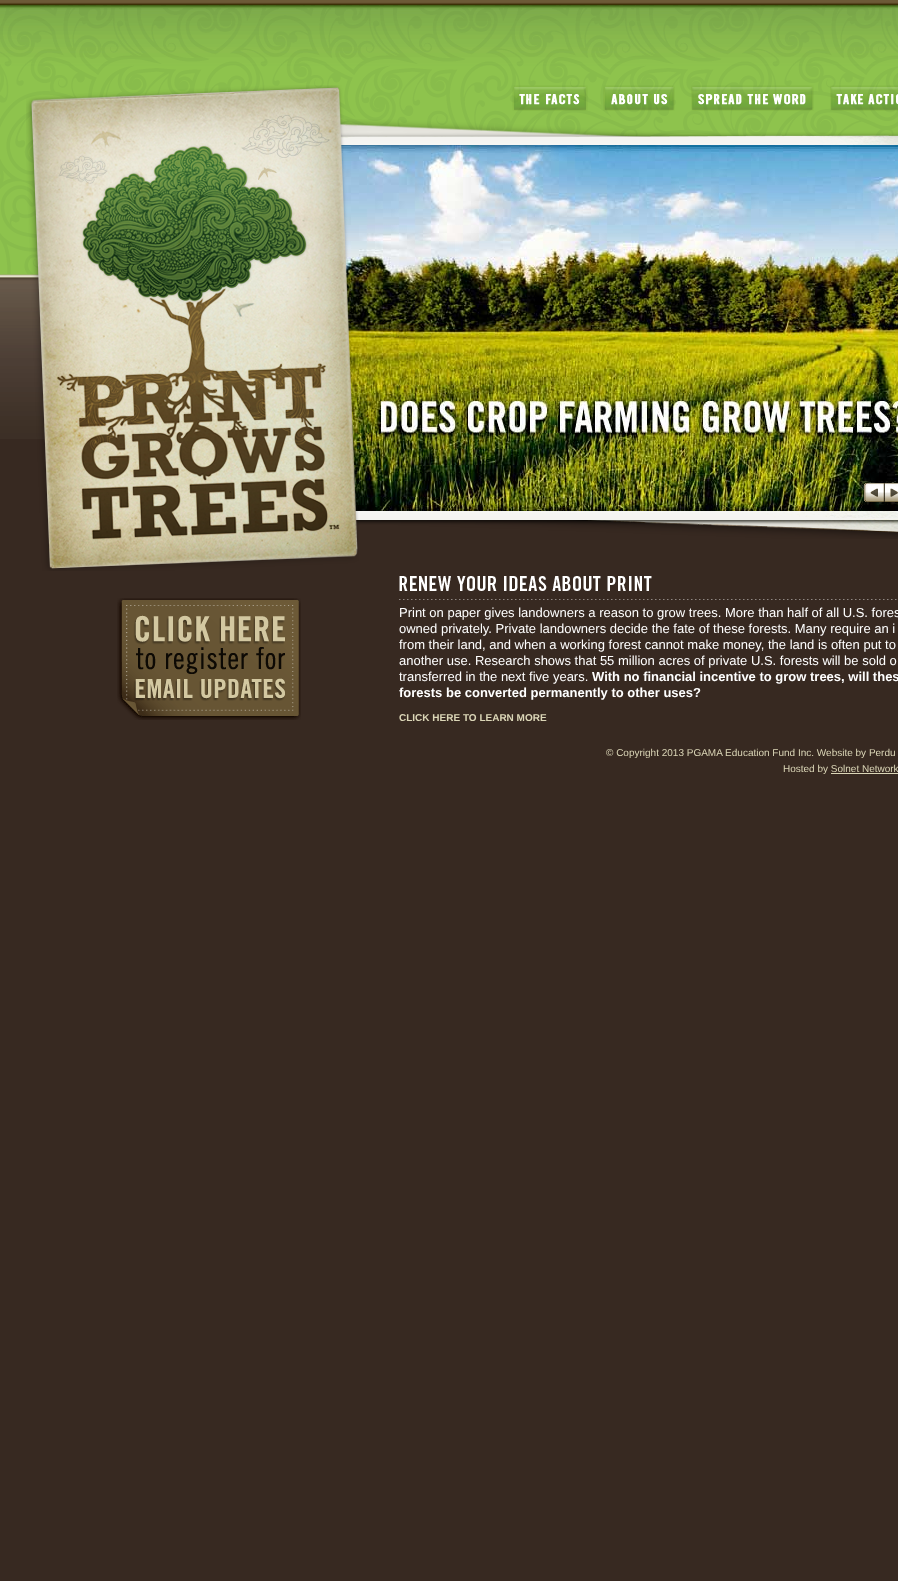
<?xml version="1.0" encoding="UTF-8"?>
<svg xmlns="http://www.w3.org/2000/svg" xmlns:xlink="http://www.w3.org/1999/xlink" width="898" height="1581">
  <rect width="100%" height="100%" fill="#372921" />
  <image x="0" y="0" width="898" height="439" xlink:href="image1.png" />
  <image x="339" y="119" width="559" height="420" xlink:href="image3.png" />
  <image x="340" y="145" width="558" height="366" xlink:href="image4.png" />
  <image x="26" y="85" width="333" height="486" xlink:href="image2.png" />
  <image x="864" y="483" width="20" height="19" xlink:href="image5.png" />
  <image x="884" y="483" width="14" height="19" xlink:href="image6.png" />
  <image x="512" y="85" width="76" height="26" xlink:href="image7.png" />
  <image x="603" y="85" width="72" height="26" xlink:href="image8.png" />
  <image x="691" y="85" width="123" height="26" xlink:href="image9.png" />
  <image x="830" y="85" width="68" height="26" xlink:href="image10.png" />
  <image x="117" y="598" width="184" height="122" xlink:href="image11.png" />
  <image x="399" y="599" width="498" height="1" xlink:href="image12.png" />
  <image x="399" y="576" width="253" height="15" xlink:href="image13.png" />
  <rect x="831" y="773" width="67" height="1" fill="#dbd6b7" />
  <text x="399" y="617" style="font-family: Liberation Sans; font-size: 13px; fill: #ffffff">Print on paper gives landowners a reason to grow trees. More than half of all U.S. fores</text>
  <text x="399" y="633" style="font-family: Liberation Sans; font-size: 13px; fill: #ffffff">owned privately. Private landowners decide the fate of these forests. Many require an i</text>
  <text x="399" y="649" style="font-family: Liberation Sans; font-size: 13px; fill: #ffffff">from their land, and when a working forest cannot make money, the land is often put to</text>
  <text x="399" y="665" style="font-family: Liberation Sans; font-size: 13px; fill: #ffffff">another use. Research shows that 55 million acres of private U.S. forests will be sold o</text>
  <text x="399" y="681" style="font-family: Liberation Sans; font-size: 13px; fill: #ffffff">transferred in the next five years.</text>
  <text x="592" y="681" style="font-family: Liberation Sans; font-size: 13px; font-weight: bold; fill: #ffffff">With no financial incentive to grow trees, will thes</text>
  <text x="399" y="697" style="font-family: Liberation Sans; font-size: 13px; font-weight: bold; fill: #ffffff">forests be converted permanently to other uses?</text>
  <text x="399" y="721" style="font-family: Liberation Sans; font-size: 10px; font-weight: bold; fill: #dbd6b7">CLICK HERE TO LEARN MORE</text>
  <text x="606" y="756" style="font-family: Liberation Sans; font-size: 10px; fill: #dbd6b7">© Copyright 2013 PGAMA Education Fund Inc. Website by Perdu</text>
  <text x="783" y="772" style="font-family: Liberation Sans; font-size: 10px; fill: #dbd6b7">Hosted by Solnet Network</text>
</svg>
